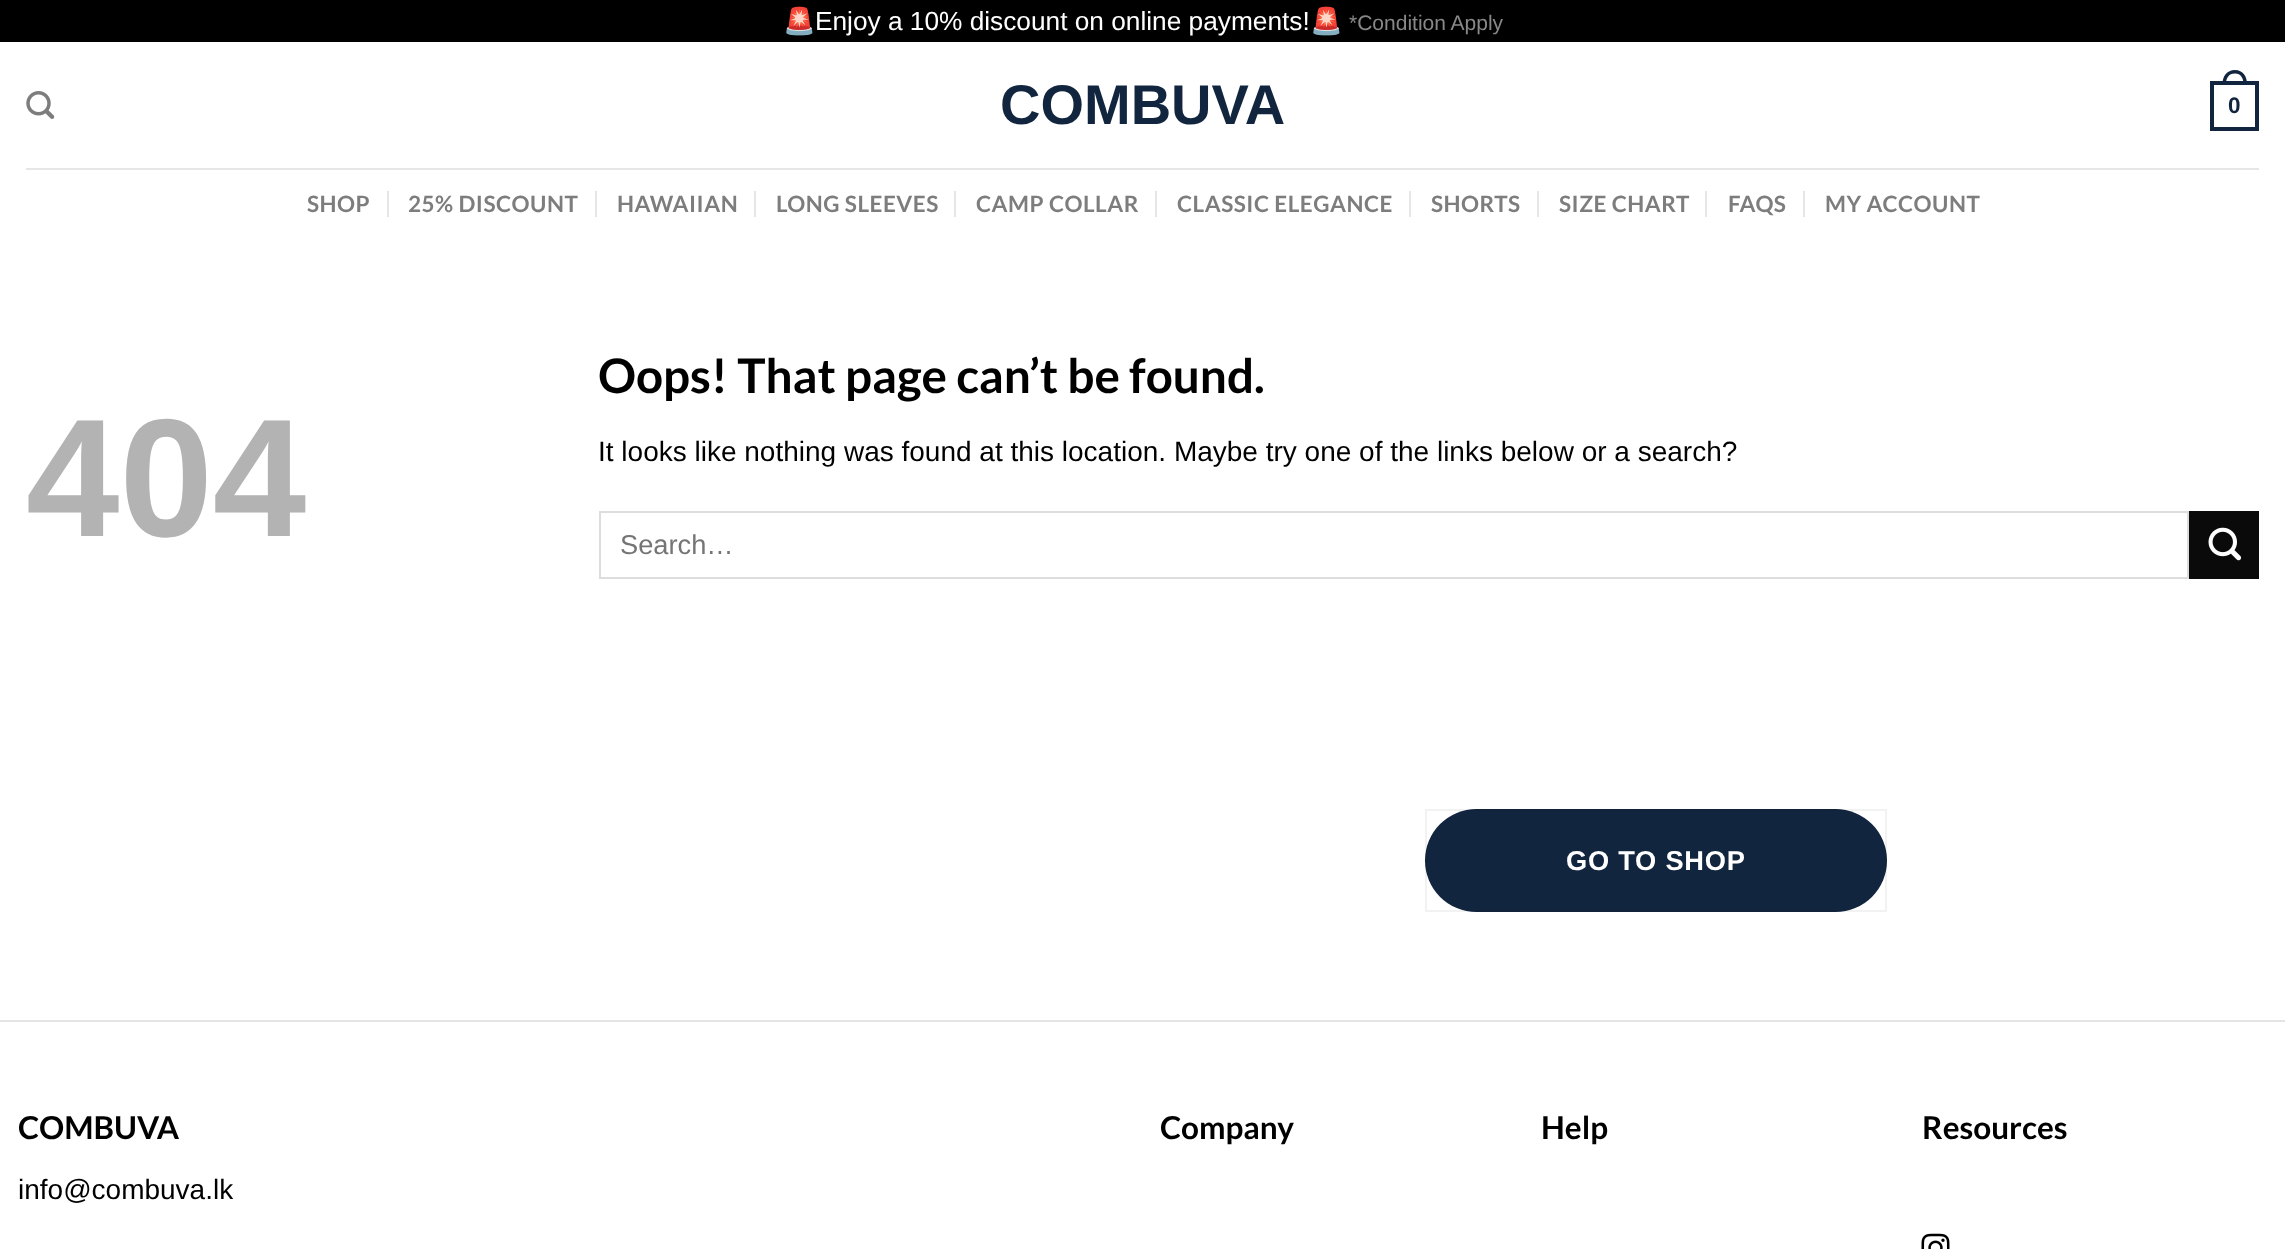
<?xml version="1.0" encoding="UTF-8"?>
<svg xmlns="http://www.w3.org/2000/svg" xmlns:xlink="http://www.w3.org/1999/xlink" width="2285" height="1249">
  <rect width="100%" height="100%" fill="#ffffff" />
  <rect width="2285" height="42" fill="#000000" />
  <image x="26" y="91" width="29" height="28" xlink:href="image1.png" />
  <rect x="2212" y="83" width="45" height="46" fill="none" stroke="#12253f" stroke-width="4" />
  <path d="M 2235 70 c 8 0 12 6.5 12 14 h -24.5 c 0 -7.5 4 -14 12.5 -14 z m 0 3.5 c 6 0 8.5 5 8.5 10.5 h -17.5 c 0 -5.5 2.5 -10.5 9 -10.5 z" fill="#12253f" fill-rule="evenodd" />
  <rect x="26" y="168" width="2233" height="2" fill="#e6e6e6" />
  <rect x="387" y="191" width="2" height="26" fill="#e6e6e6" />
  <rect x="595" y="191" width="2" height="26" fill="#e6e6e6" />
  <rect x="754" y="191" width="2" height="26" fill="#e6e6e6" />
  <rect x="954" y="191" width="2" height="26" fill="#e6e6e6" />
  <rect x="1155" y="191" width="2" height="26" fill="#e6e6e6" />
  <rect x="1409" y="191" width="2" height="26" fill="#e6e6e6" />
  <rect x="1537" y="191" width="2" height="26" fill="#e6e6e6" />
  <rect x="1705" y="191" width="2" height="26" fill="#e6e6e6" />
  <rect x="1803" y="191" width="2" height="26" fill="#e6e6e6" />
  <rect x="600" y="512" width="1588" height="66" fill="none" stroke="#dddddd" stroke-width="2" />
  <rect x="2189" y="511" width="70" height="68" fill="#0a0a0a" />
  <image x="2208" y="527" width="34" height="34" xlink:href="image2.png" />
  <rect x="1425" y="809" width="462" height="103" rx="51.5" fill="#12253f" />
  <rect x="1426" y="810" width="460" height="101" fill="none" stroke="#000000" stroke-opacity="0.05" stroke-width="2" />
  <rect y="1020" width="2285" height="2" fill="#e4e4e7" />
  <image x="1921" y="1233" width="29" height="16" xlink:href="image3.png" />
  <text x="783" y="30" style="font-family: Noto Color Emoji; font-size: 26.25px; fill: #ffffff">🚨</text>
  <text x="815" y="30" style="font-family: Liberation Sans; font-size: 26.25px; fill: #ffffff">Enjoy a 10% discount on online payments!</text>
  <text x="1310" y="30" style="font-family: Noto Color Emoji; font-size: 26.25px; fill: #ffffff">🚨</text>
  <text x="1349" y="30" style="font-family: Liberation Sans; font-size: 21px; fill: #888888">*Condition Apply</text>
  <text x="1000" y="124" style="font-family: Liberation Sans; font-size: 56px; font-weight: bold; fill: #12253f">COMBUVA</text>
  <text x="2228" y="113" style="font-family: Liberation Sans; font-size: 22.5px; font-weight: bold; letter-spacing: 0.5px; fill: #12253f">0</text>
  <text x="307" y="212" style="font-family: Lato; font-size: 22.5px; font-weight: bold; letter-spacing: 0.5px; fill: #7d7d7d">SHOP</text>
  <text x="408" y="212" style="font-family: Lato; font-size: 22.5px; font-weight: bold; letter-spacing: 0.5px; fill: #7d7d7d">25% DISCOUNT</text>
  <text x="617" y="212" style="font-family: Lato; font-size: 22.5px; font-weight: bold; letter-spacing: 0.5px; fill: #7d7d7d">HAWAIIAN</text>
  <text x="776" y="212" style="font-family: Lato; font-size: 22.5px; font-weight: bold; letter-spacing: 0.5px; fill: #7d7d7d">LONG SLEEVES</text>
  <text x="976" y="212" style="font-family: Lato; font-size: 22.5px; font-weight: bold; letter-spacing: 0.5px; fill: #7d7d7d">CAMP COLLAR</text>
  <text x="1177" y="212" style="font-family: Lato; font-size: 22.5px; font-weight: bold; letter-spacing: 0.5px; fill: #7d7d7d">CLASSIC ELEGANCE</text>
  <text x="1431" y="212" style="font-family: Lato; font-size: 22.5px; font-weight: bold; letter-spacing: 0.5px; fill: #7d7d7d">SHORTS</text>
  <text x="1559" y="212" style="font-family: Lato; font-size: 22.5px; font-weight: bold; letter-spacing: 0.5px; fill: #7d7d7d">SIZE CHART</text>
  <text x="1728" y="212" style="font-family: Lato; font-size: 22.5px; font-weight: bold; letter-spacing: 0.5px; fill: #7d7d7d">FAQS</text>
  <text x="1825" y="212" style="font-family: Lato; font-size: 22.5px; font-weight: bold; letter-spacing: 0.5px; fill: #7d7d7d">MY ACCOUNT</text>
  <text x="26" y="536" style="font-family: Liberation Sans; font-size: 168px; font-weight: bold; fill: #b3b3b3">404</text>
  <text x="598" y="393" style="font-family: Lato; font-size: 47.6px; font-weight: bold; fill: #000000">Oops! That page can’t be found.</text>
  <text x="598" y="461" style="font-family: Liberation Sans; font-size: 28px; fill: #000000">It looks like nothing was found at this location. Maybe try one of the links below or a search?</text>
  <text x="620" y="554" style="font-family: Liberation Sans; font-size: 27.25px; fill: #757575">Search…</text>
  <text x="1566" y="870" style="font-family: Liberation Sans; font-size: 27.25px; font-weight: bold; letter-spacing: 0.75px; fill: #ffffff">GO TO SHOP</text>
  <text x="18" y="1139" style="font-family: Lato; font-size: 31.5px; font-weight: bold; fill: #000000">COMBUVA</text>
  <text x="18" y="1199" style="font-family: Liberation Sans; font-size: 28px; fill: #000000">info@combuva.lk</text>
  <text x="1160" y="1139" style="font-family: Lato; font-size: 31.5px; font-weight: bold; fill: #000000">Company</text>
  <text x="1541" y="1139" style="font-family: Lato; font-size: 31.5px; font-weight: bold; fill: #000000">Help</text>
  <text x="1922" y="1139" style="font-family: Lato; font-size: 31.5px; font-weight: bold; fill: #000000">Resources</text>
</svg>
